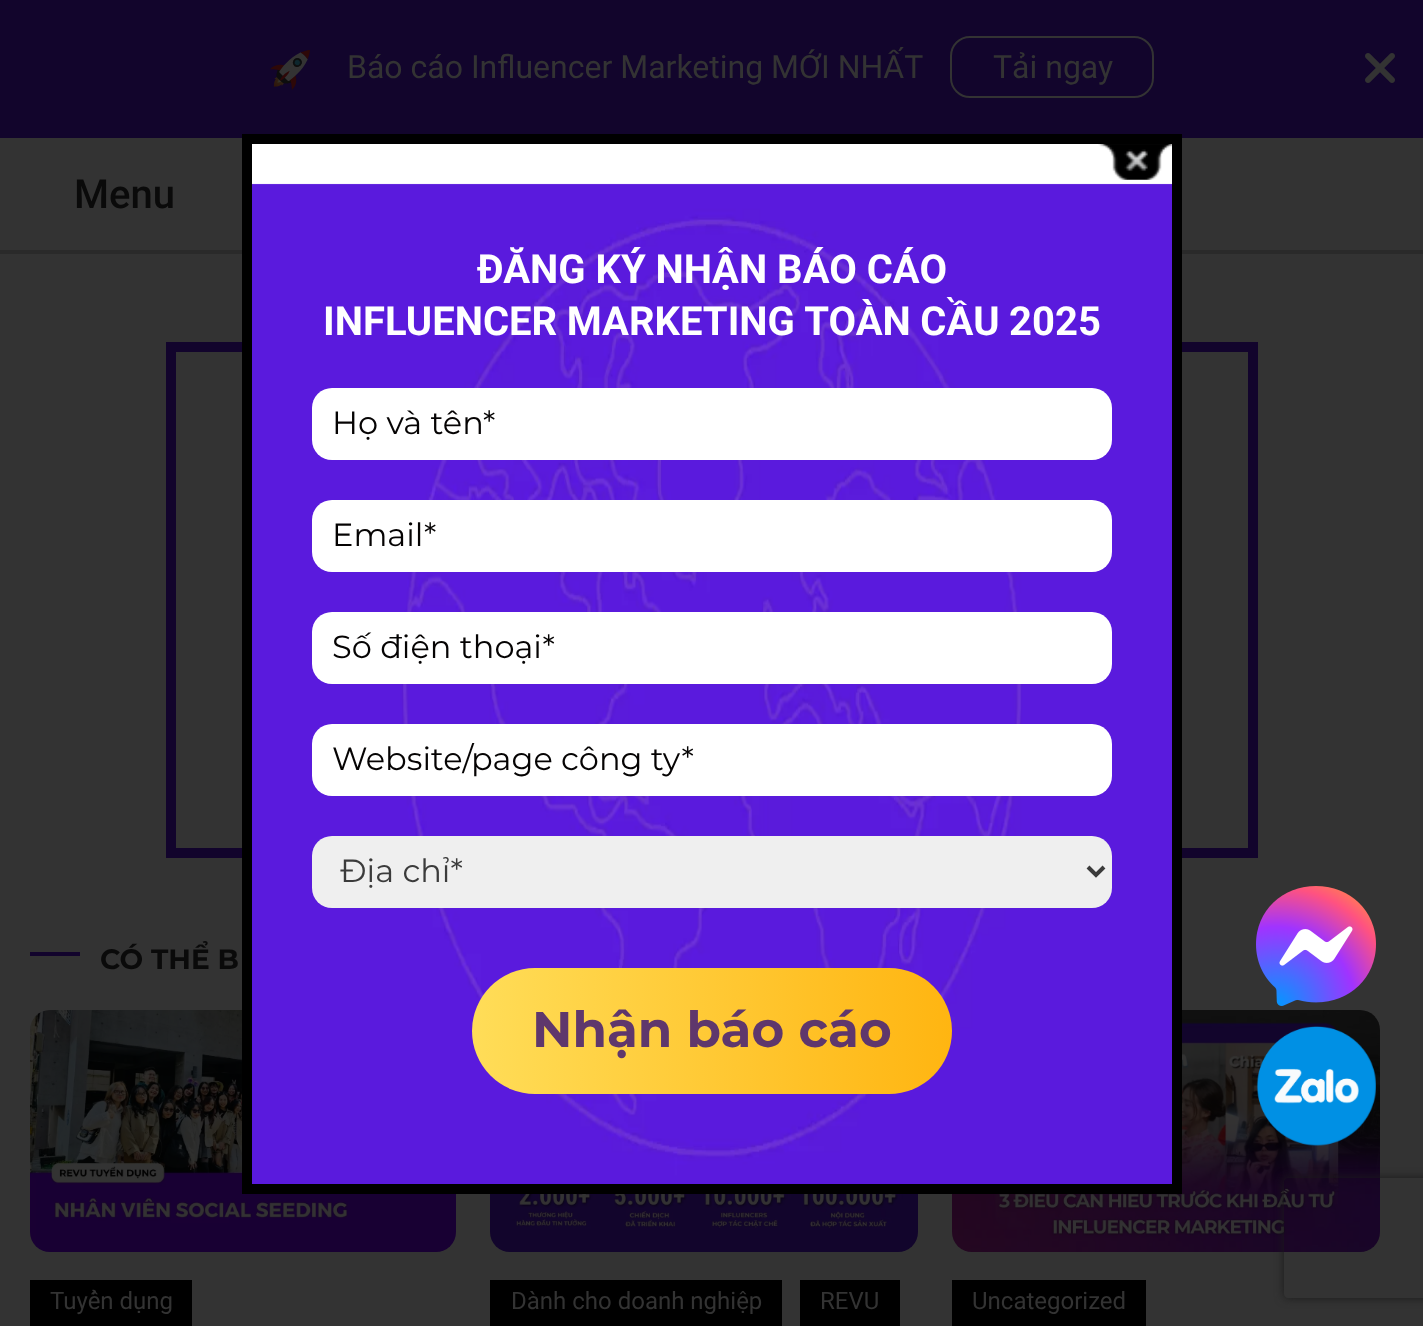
<?xml version="1.0" encoding="UTF-8"?>
<svg xmlns="http://www.w3.org/2000/svg" xmlns:xlink="http://www.w3.org/1999/xlink" width="1423" height="1326">
  <defs>
    <linearGradient id="g1" gradientUnits="userSpaceOnUse" x1="472" y1="1031" x2="952" y2="1031"><stop offset="0" stop-color="#ffdd58" /><stop offset="1" stop-color="#ffb511" /></linearGradient>
    <clipPath id="clip1"><path d="M 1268 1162 h 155 v 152 h -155 z m 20 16 h 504 c 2 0 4 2 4 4 v 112 c 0 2 -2 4 -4 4 h -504 c -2 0 -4 -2 -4 -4 v -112 c 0 -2 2 -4 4 -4 z" clip-rule="evenodd" /></clipPath>
  </defs>
  <rect width="100%" height="100%" fill="#333333" />
  <rect width="1423" height="138" fill="#12052c" />
  <image x="270" y="50" width="40" height="40" xlink:href="image1.png" />
  <rect x="951" y="37" width="202" height="60" rx="19" fill="none" stroke="#333333" stroke-width="2" />
  <image x="1365" y="53" width="30" height="30" xlink:href="image2.png" />
  <rect y="250" width="1423" height="4" fill="#2a2a2a" />
  <rect x="171" y="347" width="1082" height="506" fill="none" stroke="#12042c" stroke-width="10" />
  <rect x="30" y="952" width="50" height="4" fill="#12042c" />
  <image x="30" y="1010" width="426" height="242" xlink:href="image3.png" />
  <rect x="30" y="1280" width="162" height="46" fill="#000000" />
  <image x="490" y="1194" width="428" height="58" xlink:href="image4.png" />
  <rect x="490" y="1280" width="292" height="46" fill="#000000" />
  <rect x="800" y="1280" width="100" height="46" fill="#000000" />
  <image x="952" y="1010" width="428" height="242" xlink:href="image5.png" />
  <rect x="952" y="1280" width="194" height="46" fill="#000000" />
  <rect x="252" y="144" width="920" height="41" fill="#ffffff" />
  <rect x="247" y="139" width="930" height="1050" fill="none" stroke="#000000" stroke-width="10" />
  <image x="1098" y="144" width="74" height="36" xlink:href="image6.png" />
  <image x="252" y="183" width="920" height="1001" xlink:href="image7.png" />
  <rect x="312" y="388" width="800" height="72" rx="20" fill="#ffffff" />
  <rect x="312" y="500" width="800" height="72" rx="20" fill="#ffffff" />
  <rect x="312" y="612" width="800" height="72" rx="20" fill="#ffffff" />
  <rect x="312" y="724" width="800" height="72" rx="20" fill="#ffffff" />
  <rect x="312" y="836" width="800" height="72" rx="20" fill="#efefef" />
  <path d="M 1088 867 l 8 8 l 8 -8" fill="none" stroke="#3b3b3b" stroke-width="4" />
  <rect x="472" y="968" width="480" height="126" rx="63" fill="url(#g1)" />
  <image x="1256" y="886" width="120" height="120" xlink:href="image8.png" />
  <image x="1256" y="1026" width="120" height="120" xlink:href="image9.png" />
  <g clip-path="url(#clip1)">
    <rect x="1284" y="1178" width="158" height="120" rx="4" fill="#1a1a1a" filter="blur(5px)" />
  </g>
  <text x="347" y="78" style="font-family: Roboto; font-size: 32px; fill: #333333">Báo cáo Influencer Marketing MỚI NHẤT</text>
  <text x="993" y="78" style="font-family: Roboto; font-size: 32px; fill: #333333">Tải ngay</text>
  <text x="74" y="208" style="font-family: Roboto; font-size: 40px; font-weight: 500; fill: #0a0a0a">Menu</text>
  <text x="100" y="969" style="font-family: Montserrat; font-size: 28px; font-weight: bold; fill: #0a0a0a">CÓ THỂ B</text>
  <text x="50" y="1309" style="font-family: Roboto; font-size: 24px; fill: #333333">Tuyển dụng</text>
  <text x="511" y="1309" style="font-family: Roboto; font-size: 24px; fill: #333333">Dành cho doanh nghiệp</text>
  <text x="820" y="1309" style="font-family: Roboto; font-size: 24px; fill: #333333">REVU</text>
  <text x="972" y="1309" style="font-family: Roboto; font-size: 24px; fill: #333333">Uncategorized</text>
  <text x="477" y="283" style="font-family: Roboto; font-size: 40px; font-weight: bold; fill: #ffffff">ĐĂNG KÝ NHẬN BÁO CÁO</text>
  <text x="323" y="335" word-spacing="-0.5" style="font-family: Roboto; font-size: 40px; font-weight: bold; fill: #ffffff">INFLUENCER MARKETING TOÀN CẦU 2025</text>
  <text x="332" y="434" style="font-family: Montserrat; font-size: 32px; fill: #050303">Họ và tên*</text>
  <text x="332" y="546" style="font-family: Montserrat; font-size: 32px; fill: #050303">Email*</text>
  <text x="332" y="658" style="font-family: Montserrat; font-size: 32px; fill: #050303">Số điện thoại*</text>
  <text x="332" y="770" style="font-family: Montserrat; font-size: 32px; fill: #050303">Website/page công ty*</text>
  <text x="340" y="882" style="font-family: Montserrat; font-size: 32px; fill: #3b3b3b">Địa chỉ*</text>
  <text x="532" y="1047" style="font-family: Montserrat; font-size: 50px; font-weight: bold; fill: #5f376c">Nhận báo cáo</text>
</svg>
